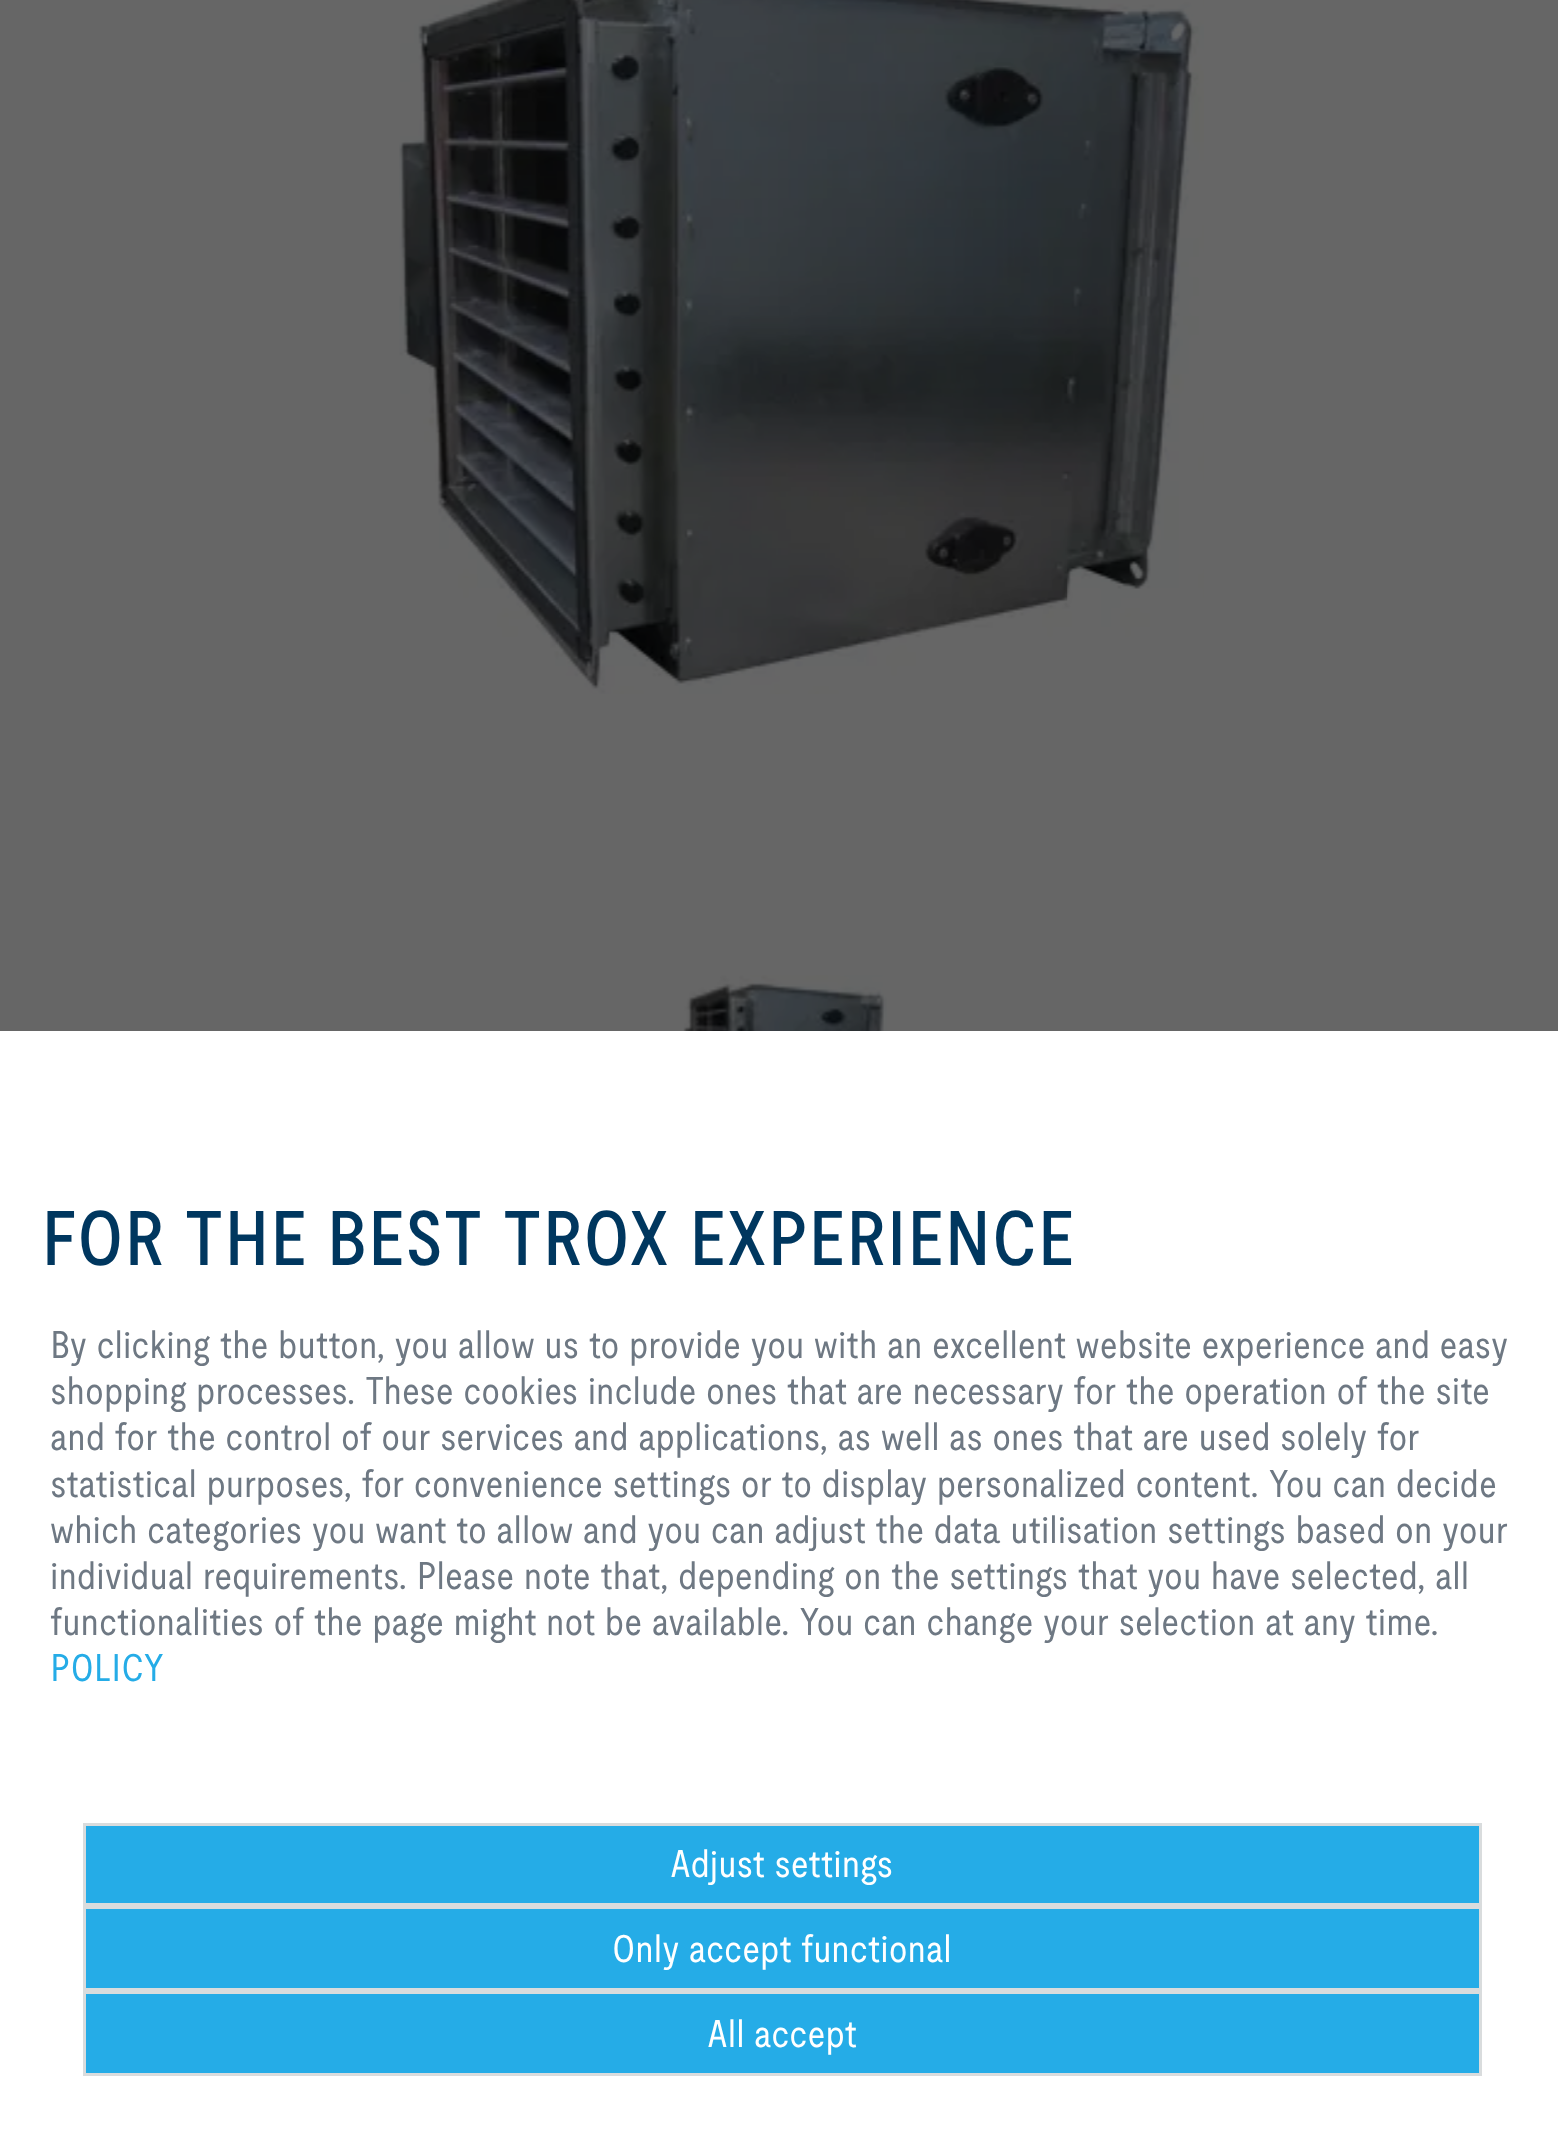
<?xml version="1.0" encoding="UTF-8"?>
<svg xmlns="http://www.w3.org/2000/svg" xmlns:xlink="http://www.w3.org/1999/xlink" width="1558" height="2129">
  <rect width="100%" height="100%" fill="#666666" />
  <image x="399" y="0" width="805" height="694" xlink:href="image1.png" />
  <image x="683" y="975" width="204" height="56" xlink:href="image2.png" />
  <rect y="1031" width="1558" height="1098" fill="#ffffff" />
  <rect x="84.5" y="1824.5" width="1396" height="80" fill="#25ace7" stroke="#d9dcdd" stroke-width="3" />
  <rect x="84.5" y="1907.5" width="1396" height="82" fill="#25ace7" stroke="#d9dcdd" stroke-width="3" />
  <rect x="84.5" y="1992.5" width="1396" height="82" fill="#25ace7" stroke="#d9dcdd" stroke-width="3" />
  <text x="41" y="1265" style="font-family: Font; font-size: 77px; font-weight: 500; fill: #00375f">FOR THE BEST TROX EXPERIENCE</text>
  <text x="50" y="1358" style="font-family: Font; font-size: 38.5px; fill: #6e7883">By clicking the button, you allow us to provide you with an excellent website experience and easy</text>
  <text x="50" y="1404" style="font-family: Font; font-size: 38.5px; fill: #6e7883">shopping processes. These cookies include ones that are necessary for the operation of the site</text>
  <text x="50" y="1450" style="font-family: Font; font-size: 38.5px; fill: #6e7883">and for the control of our services and applications, as well as ones that are used solely for</text>
  <text x="50" y="1497" style="font-family: Font; font-size: 38.5px; fill: #6e7883">statistical purposes, for convenience settings or to display personalized content. You can decide</text>
  <text x="50" y="1543" style="font-family: Font; font-size: 38.5px; fill: #6e7883">which categories you want to allow and you can adjust the data utilisation settings based on your</text>
  <text x="50" y="1589" style="font-family: Font; font-size: 38.5px; fill: #6e7883">individual requirements. Please note that, depending on the settings that you have selected, all</text>
  <text x="50" y="1635" style="font-family: Font; font-size: 38.5px; fill: #6e7883">functionalities of the page might not be available. You can change your selection at any time.</text>
  <text x="50" y="1681" style="font-family: Font; font-size: 38.5px; fill: #25ace7">POLICY</text>
  <text x="670" y="1877" style="font-family: Font; font-size: 38.5px; fill: #ffffff">Adjust settings</text>
  <text x="612" y="1962" style="font-family: Font; font-size: 38.5px; fill: #ffffff">Only accept functional</text>
  <text x="707" y="2047" style="font-family: Font; font-size: 38.5px; fill: #ffffff">All accept</text>
</svg>
